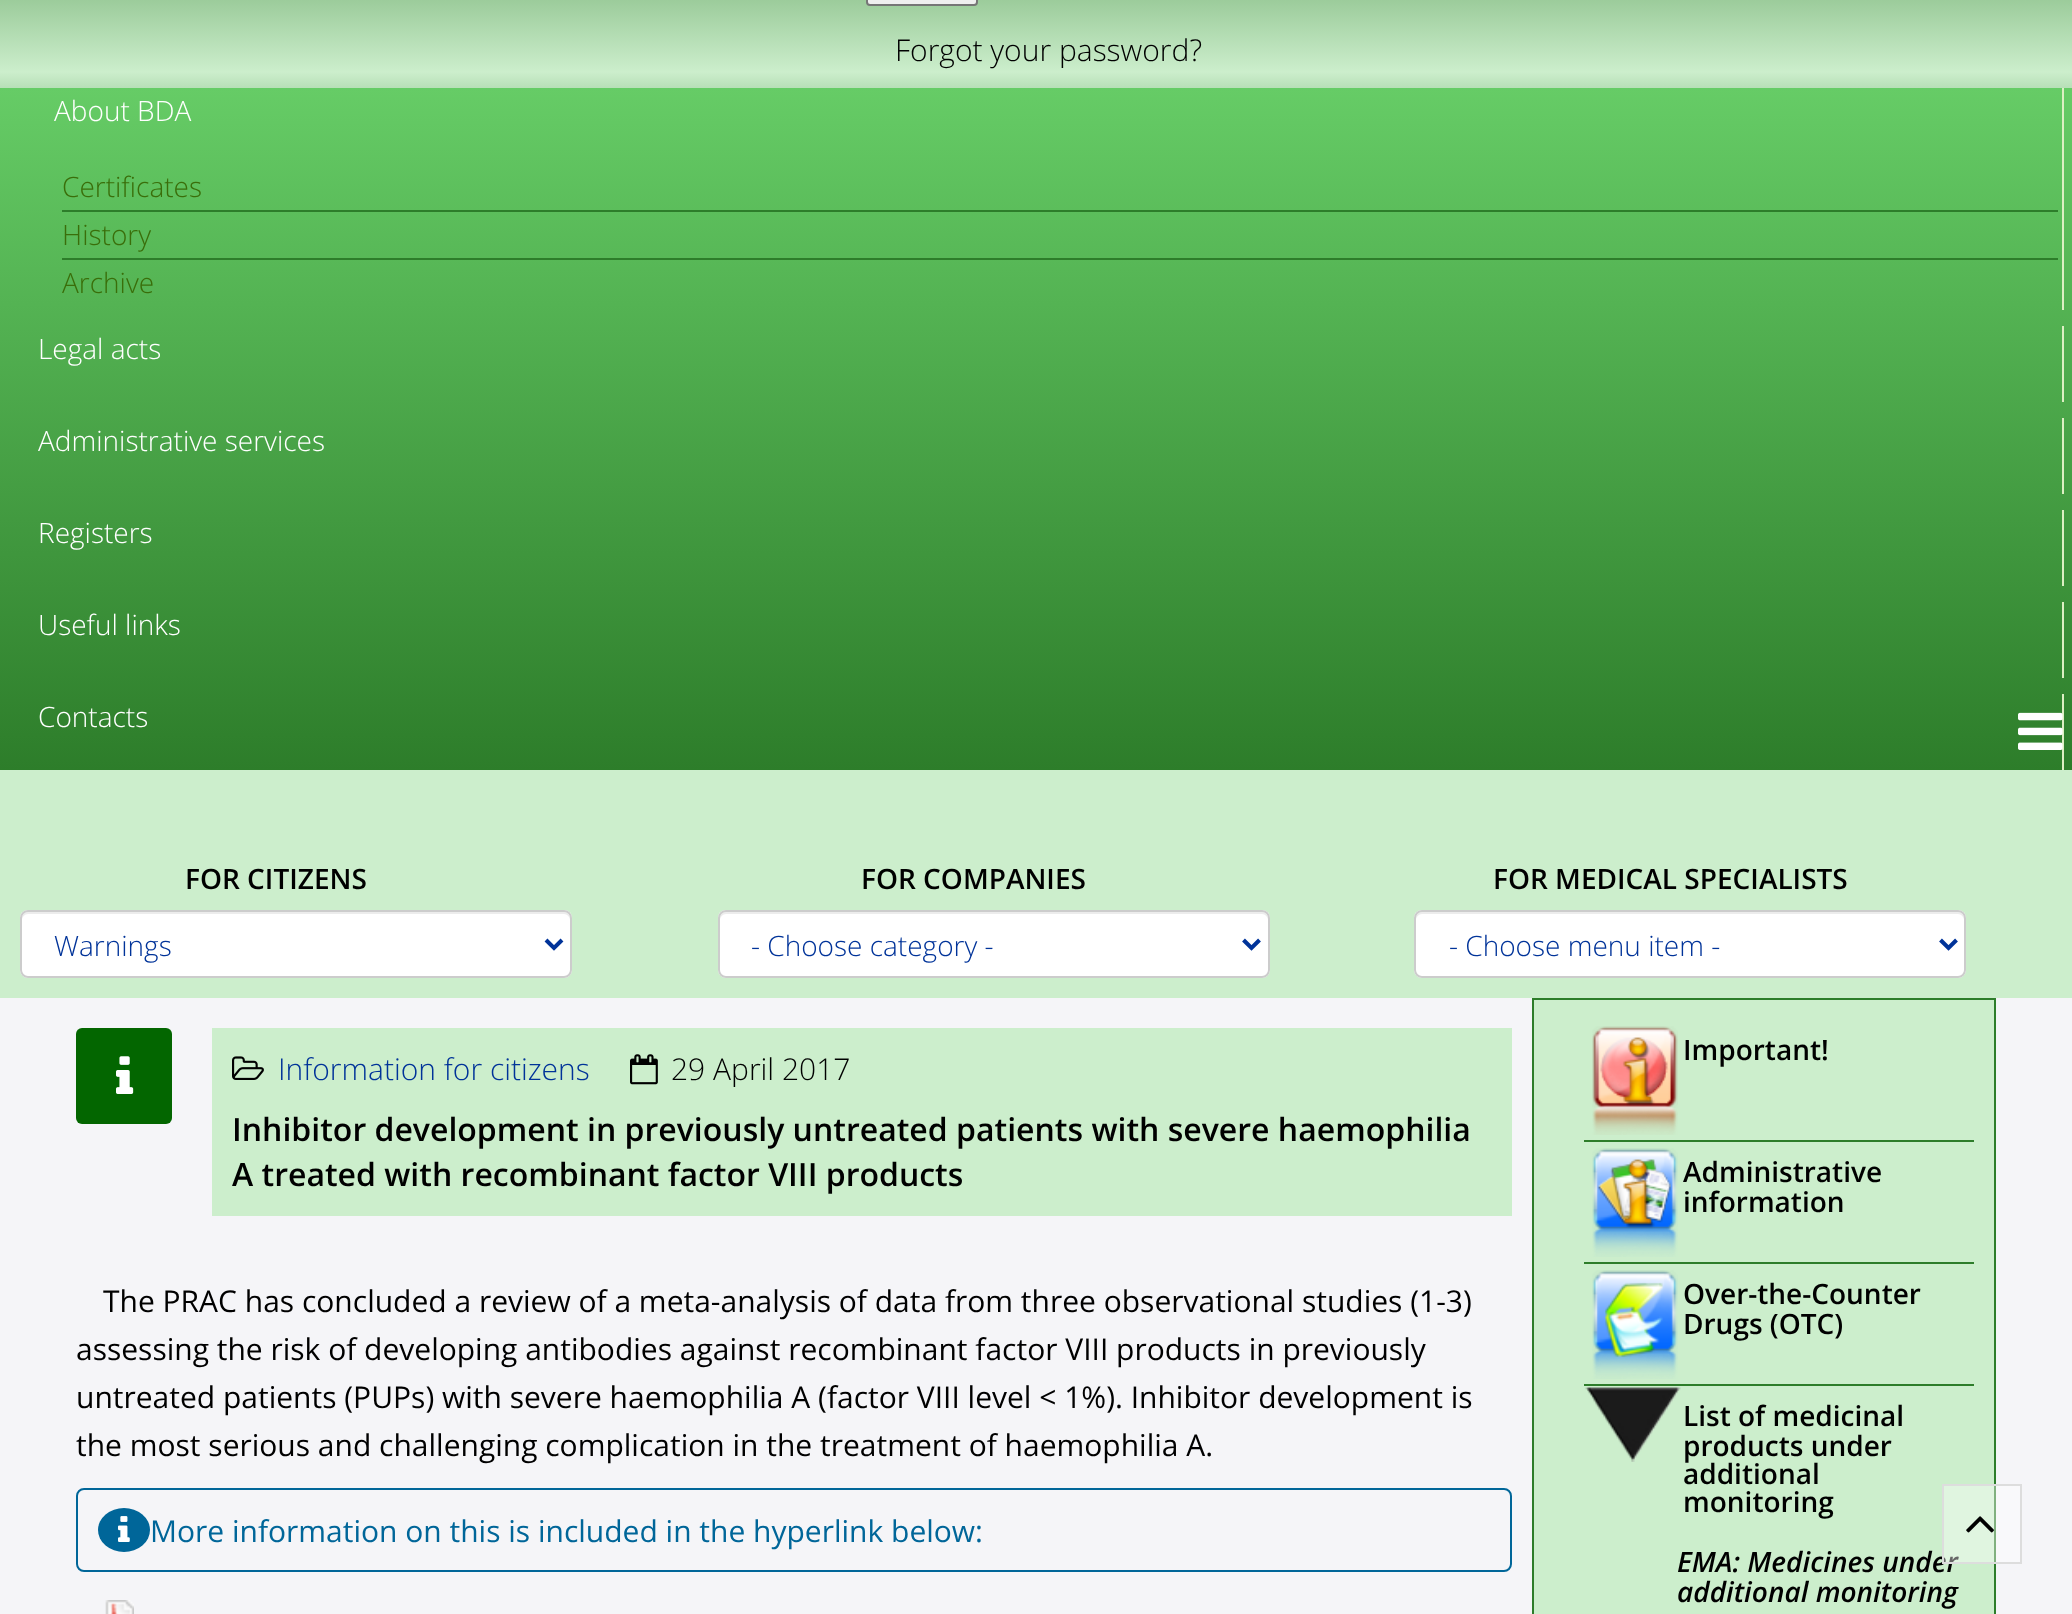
<?xml version="1.0" encoding="UTF-8"?>
<svg xmlns="http://www.w3.org/2000/svg" xmlns:xlink="http://www.w3.org/1999/xlink" width="2072" height="1614">
  <defs>
    <linearGradient id="g1" gradientUnits="userSpaceOnUse" x1="1036" y1="-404" x2="1036" y2="72"><stop offset="0" stop-color="#cceecc" /><stop offset="0.5" stop-color="#2d7d2a" /><stop offset="1" stop-color="#cceecc" /></linearGradient>
    <linearGradient id="g2" gradientUnits="userSpaceOnUse" x1="1036" y1="72" x2="1036" y2="196"><stop offset="0" stop-color="#cceecc" /><stop offset="1" stop-color="#2d7d2a" /></linearGradient>
    <linearGradient id="g3" gradientUnits="userSpaceOnUse" x1="1036" y1="88" x2="1036" y2="770"><stop offset="0" stop-color="#66cc66" /><stop offset="1" stop-color="#2d7d2a" /></linearGradient>
  </defs>
  <rect width="100%" height="100%" fill="#f5f5f8" />
  <rect width="2072" height="72" fill="url(#g1)" />
  <rect x="867" y="-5" width="110" height="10" rx="3" fill="#efefef" stroke="#767676" stroke-width="2" />
  <rect y="72" width="2072" height="16" fill="url(#g2)" />
  <rect y="88" width="2072" height="682" fill="url(#g3)" />
  <rect x="2062" y="88" width="2" height="222" fill="#ddefc3" />
  <rect x="62" y="210" width="1996" height="2" fill="#2d7d2a" />
  <rect x="62" y="258" width="1996" height="2" fill="#2d7d2a" />
  <rect x="2062" y="326" width="2" height="76" fill="#ddefc3" />
  <rect x="2062" y="418" width="2" height="76" fill="#ddefc3" />
  <rect x="2062" y="510" width="2" height="76" fill="#ddefc3" />
  <rect x="2062" y="602" width="2" height="76" fill="#ddefc3" />
  <rect x="2062" y="694" width="2" height="76" fill="#ddefc3" />
  <image x="2018" y="712" width="45" height="38" xlink:href="image1.png" />
  <rect y="770" width="2072" height="228" fill="#cceecc" />
  <rect x="20" y="910" width="552" height="68" rx="8" fill="#ffffff" />
  <path d="M 28 914 h 536 c 3 0 6 3 6 6 v -2 c 0 -3 -3 -6 -6 -6 h -536 c -3 0 -6 3 -6 6 v 2 c 0 -3 3 -6 6 -6 z" fill="#ececec" />
  <rect x="21" y="911" width="550" height="66" rx="7" fill="none" stroke="#cccccc" stroke-width="2" />
  <path d="M 546 940 l 8 8 l 8 -8" fill="none" stroke="#003399" stroke-width="4" />
  <rect x="718" y="910" width="552" height="68" rx="8" fill="#ffffff" />
  <path d="M 726 914 h 536 c 3 0 6 3 6 6 v -2 c 0 -3 -3 -6 -6 -6 h -536 c -3 0 -6 3 -6 6 v 2 c 0 -3 3 -6 6 -6 z" fill="#ececec" />
  <rect x="719" y="911" width="550" height="66" rx="7" fill="none" stroke="#cccccc" stroke-width="2" />
  <path d="M 1243.5 940 l 8 8 l 8 -8" fill="none" stroke="#003399" stroke-width="4" />
  <rect x="1414" y="910" width="552" height="68" rx="8" fill="#ffffff" />
  <path d="M 1422 914 h 536 c 3 0 6 3 6 6 v -2 c 0 -3 -3 -6 -6 -6 h -536 c -3 0 -6 3 -6 6 v 2 c 0 -3 3 -6 6 -6 z" fill="#ececec" />
  <rect x="1415" y="911" width="550" height="66" rx="7" fill="none" stroke="#cccccc" stroke-width="2" />
  <path d="M 1940.5 940 l 8 8 l 8 -8" fill="none" stroke="#003399" stroke-width="4" />
  <rect x="212" y="1028" width="1300" height="188" fill="#cceecc" />
  <rect x="76" y="1028" width="96" height="96" rx="6" fill="#036600" />
  <image x="116" y="1056" width="18" height="38" xlink:href="image2.png" />
  <image x="232" y="1056" width="32" height="24" xlink:href="image3.png" />
  <image x="630" y="1054" width="28" height="31" xlink:href="image4.png" />
  <rect x="77" y="1489" width="1434" height="82" rx="7" fill="none" stroke="#006699" stroke-width="2" />
  <ellipse cx="124" cy="1530" rx="26" ry="22" fill="#006699" />
  <image x="118" y="1516" width="12" height="26" xlink:href="image5.png" />
  <image x="105" y="1600" width="29" height="14" xlink:href="image6.png" />
  <rect x="1533" y="999" width="462" height="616" fill="#cceecc" stroke="#2d7d2a" stroke-width="2" />
  <image x="1592" y="1026" width="86" height="109" xlink:href="image7.png" />
  <rect x="1584" y="1140" width="390" height="2" fill="#2d7d2a" />
  <image x="1592" y="1148" width="86" height="109" xlink:href="image8.png" />
  <rect x="1584" y="1262" width="390" height="2" fill="#2d7d2a" />
  <image x="1592" y="1270" width="86" height="109" xlink:href="image9.png" />
  <rect x="1584" y="1384" width="390" height="2" fill="#2d7d2a" />
  <image x="1585" y="1387" width="96" height="75" xlink:href="image10.png" />
  <text x="895" y="61" style="font-family: Open Sans; font-size: 30px; font-weight: 300; fill: #000000">Forgot your password?</text>
  <text x="54" y="121" style="font-family: Open Sans; font-size: 28px; font-weight: 300; fill: #ffffff">About BDA</text>
  <text x="62" y="197" style="font-family: Open Sans; font-size: 28px; font-weight: 300; fill: #3a6e0a">Certificates</text>
  <text x="62" y="245" style="font-family: Open Sans; font-size: 28px; font-weight: 300; fill: #3a6e0a">History</text>
  <text x="62" y="293" style="font-family: Open Sans; font-size: 28px; font-weight: 300; fill: #3a6e0a">Archive</text>
  <text x="38" y="359" style="font-family: Open Sans; font-size: 28px; font-weight: 300; fill: #ffffff">Legal acts</text>
  <text x="38" y="451" style="font-family: Open Sans; font-size: 28px; font-weight: 300; fill: #ffffff">Administrative services</text>
  <text x="38" y="543" style="font-family: Open Sans; font-size: 28px; font-weight: 300; fill: #ffffff">Registers</text>
  <text x="38" y="635" style="font-family: Open Sans; font-size: 28px; font-weight: 300; fill: #ffffff">Useful links</text>
  <text x="38" y="727" style="font-family: Open Sans; font-size: 28px; font-weight: 300; fill: #ffffff">Contacts</text>
  <text x="185" y="889" style="font-family: Open Sans; font-size: 28px; font-weight: 600; fill: #000000">FOR CITIZENS</text>
  <text x="54" y="956" style="font-family: Open Sans; font-size: 28px; font-weight: 300; fill: #003399">Warnings</text>
  <text x="861" y="889" style="font-family: Open Sans; font-size: 28px; font-weight: 600; fill: #000000">FOR COMPANIES</text>
  <text x="751" y="956" style="font-family: Open Sans; font-size: 28px; font-weight: 300; fill: #003399">- Choose category -</text>
  <text x="1493" y="889" style="font-family: Open Sans; font-size: 28px; font-weight: 600; fill: #000000">FOR MEDICAL SPECIALISTS</text>
  <text x="1449" y="956" style="font-family: Open Sans; font-size: 28px; font-weight: 300; fill: #003399">- Choose menu item -</text>
  <text x="278" y="1080" style="font-family: Open Sans; font-size: 30px; font-weight: 300; fill: #003399">Information for citizens</text>
  <text x="671" y="1080" style="font-family: Open Sans; font-size: 30px; font-weight: 300; fill: #000000">29 April 2017</text>
  <text x="232" y="1141" style="font-family: Open Sans; font-size: 32px; font-weight: 600; fill: #000000">Inhibitor development in previously untreated patients with severe haemophilia</text>
  <text x="232" y="1186" style="font-family: Open Sans; font-size: 32px; font-weight: 600; fill: #000000">A treated with recombinant factor VIII products</text>
  <text x="103" y="1312" style="font-family: Open Sans; font-size: 30px; fill: #000000">The PRAC has concluded a review of a meta-analysis of data from three observational studies (1-3)</text>
  <text x="76" y="1360" style="font-family: Open Sans; font-size: 30px; fill: #000000">assessing the risk of developing antibodies against recombinant factor VIII products in previously</text>
  <text x="76" y="1408" style="font-family: Open Sans; font-size: 30px; fill: #000000">untreated patients (PUPs) with severe haemophilia A (factor VIII level &lt; 1%). Inhibitor development is</text>
  <text x="76" y="1456" style="font-family: Open Sans; font-size: 30px; fill: #000000">the most serious and challenging complication in the treatment of haemophilia A.</text>
  <text x="150" y="1542" style="font-family: Open Sans; font-size: 30px; fill: #006699">More information on this is included in the hyperlink below:</text>
  <text x="1683" y="1060" style="font-family: Open Sans; font-size: 28px; font-weight: 600; fill: #000000">Important!</text>
  <text x="1683" y="1182" style="font-family: Open Sans; font-size: 28px; font-weight: 600; fill: #000000">Administrative</text>
  <text x="1683" y="1212" style="font-family: Open Sans; font-size: 28px; font-weight: 600; fill: #000000">information</text>
  <text x="1683" y="1304" style="font-family: Open Sans; font-size: 28px; font-weight: 600; fill: #000000">Over-the-Counter</text>
  <text x="1683" y="1334" style="font-family: Open Sans; font-size: 28px; font-weight: 600; fill: #000000">Drugs (OTC)</text>
  <text x="1683" y="1426" style="font-family: Open Sans; font-size: 28px; font-weight: 600; fill: #000000">List of medicinal</text>
  <text x="1683" y="1456" style="font-family: Open Sans; font-size: 28px; font-weight: 600; fill: #000000">products under</text>
  <text x="1683" y="1484" style="font-family: Open Sans; font-size: 28px; font-weight: 600; fill: #000000">additional</text>
  <text x="1683" y="1512" style="font-family: Open Sans; font-size: 28px; font-weight: 600; fill: #000000">monitoring</text>
  <text x="1677" y="1572" style="font-family: Open Sans; font-size: 28px; font-weight: 600; font-style: italic; fill: #000000">EMA: Medicines under</text>
  <text x="1677" y="1602" style="font-family: Open Sans; font-size: 28px; font-weight: 600; font-style: italic; fill: #000000">additional monitoring</text>
  <rect x="1943" y="1485" width="78" height="78" fill="#ffffff" fill-opacity="0.4" stroke="#dddddd" stroke-width="2" />
  <image x="1966" y="1516" width="28" height="17" xlink:href="image11.png" />
</svg>
